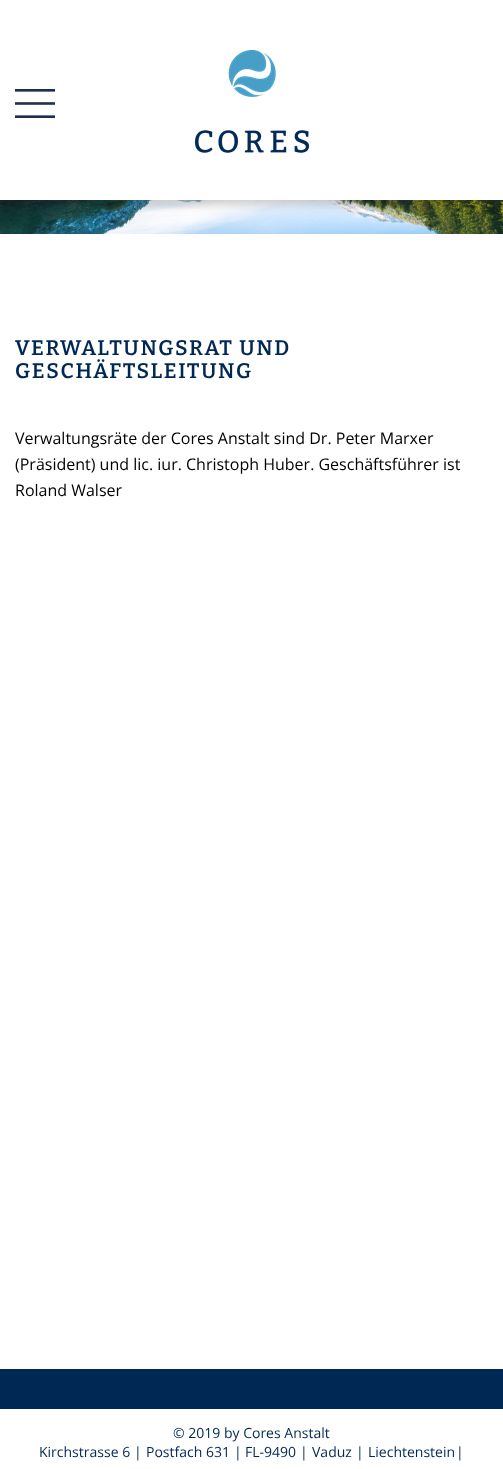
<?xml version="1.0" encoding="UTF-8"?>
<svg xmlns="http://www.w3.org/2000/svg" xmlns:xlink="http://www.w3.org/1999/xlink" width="503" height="1469">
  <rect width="100%" height="100%" fill="#ffffff" />
  <image x="0" y="200" width="503" height="34" xlink:href="image4.png" />
  <rect x="-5" y="-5" width="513" height="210" fill="#000000" fill-opacity="0.2" filter="blur(5px)" />
  <rect width="503" height="200" fill="#ffffff" />
  <image x="15" y="89" width="40" height="29" xlink:href="image1.png" />
  <image x="228" y="50" width="48" height="47" xlink:href="image2.png" />
  <image x="194" y="130" width="116" height="23" xlink:href="image3.png" />
  <rect y="1369" width="503" height="40" fill="#002855" />
  <text x="15" y="355" style="font-family: Bitter; font-size: 21px; font-weight: 600; letter-spacing: 1.6px; fill: #002855">VERWALTUNGSRAT UND</text>
  <text x="15" y="378" style="font-family: Bitter; font-size: 21px; font-weight: 600; letter-spacing: 1.6px; fill: #002855">GESCHÄFTSLEITUNG</text>
  <text x="15" y="444" style="font-family: Open Sans; font-size: 16px; fill: #000000">Verwaltungsräte der Cores Anstalt sind Dr. Peter Marxer</text>
  <text x="15" y="470" style="font-family: Open Sans; font-size: 16px; fill: #000000">(Präsident) und lic. iur. Christoph Huber. Geschäftsführer ist</text>
  <text x="15" y="496" style="font-family: Open Sans; font-size: 16px; fill: #000000">Roland Walser</text>
  <text x="173" y="1438" style="font-family: Open Sans; font-size: 14px; fill: #002855">© 2019 by Cores Anstalt</text>
  <text x="39" y="1457" style="font-family: Open Sans; font-size: 14px; fill: #002855">Kirchstrasse 6</text>
  <text x="134" y="1457" style="font-family: Open Sans; font-size: 14px; fill: #002855">|</text>
  <text x="146" y="1457" style="font-family: Open Sans; font-size: 14px; fill: #002855">Postfach 631</text>
  <text x="234" y="1457" style="font-family: Open Sans; font-size: 14px; fill: #002855">|</text>
  <text x="245" y="1457" style="font-family: Open Sans; font-size: 14px; fill: #002855">FL-9490</text>
  <text x="300" y="1457" style="font-family: Open Sans; font-size: 14px; fill: #002855">|</text>
  <text x="312" y="1457" style="font-family: Open Sans; font-size: 14px; fill: #002855">Vaduz</text>
  <text x="356" y="1457" style="font-family: Open Sans; font-size: 14px; fill: #002855">|</text>
  <text x="368" y="1457" style="font-family: Open Sans; font-size: 14px; fill: #002855">Liechtenstein</text>
  <text x="456" y="1457" style="font-family: Open Sans; font-size: 14px; fill: #002855">|</text>
</svg>
